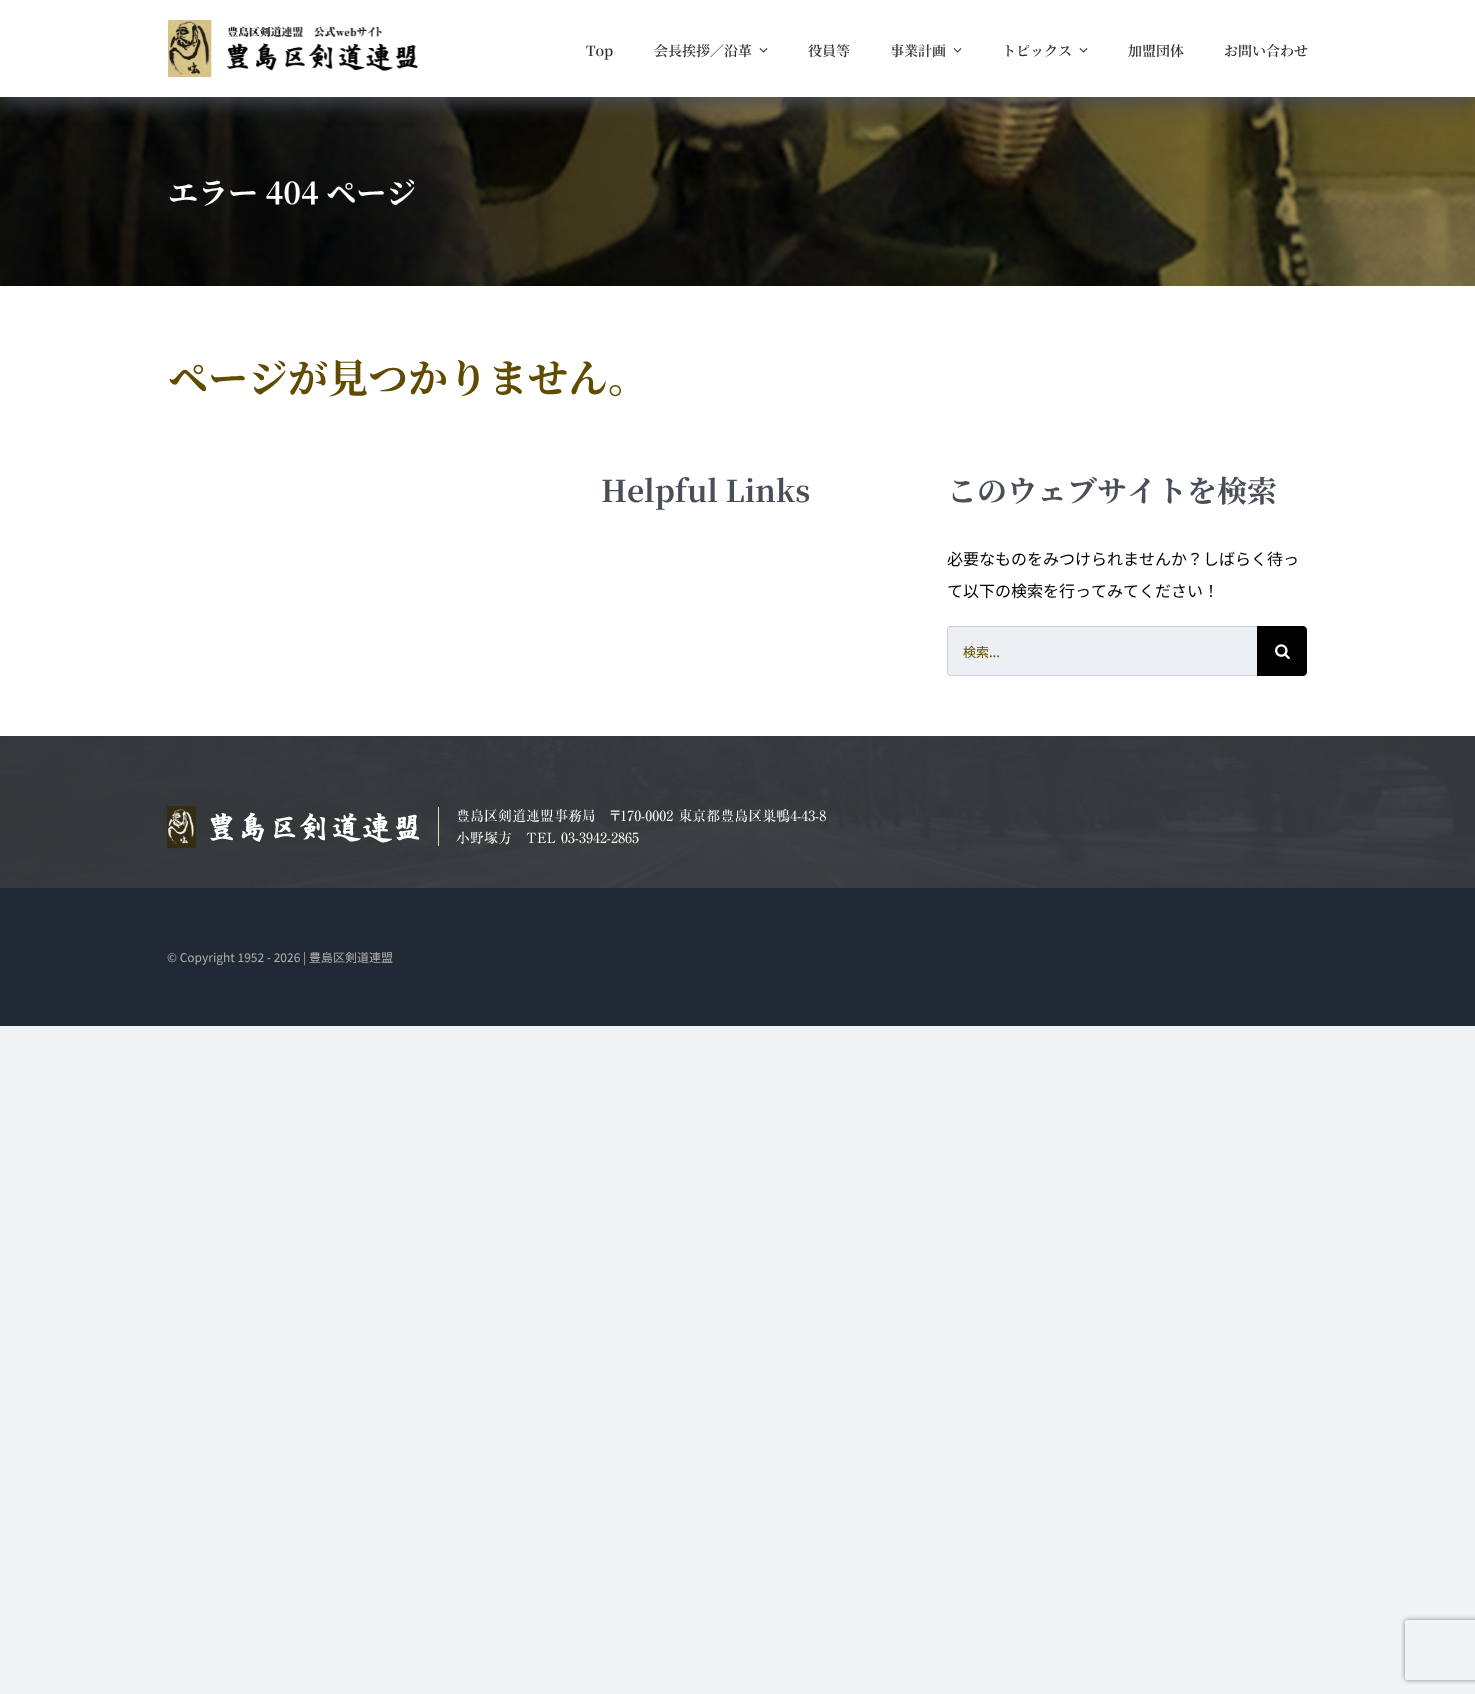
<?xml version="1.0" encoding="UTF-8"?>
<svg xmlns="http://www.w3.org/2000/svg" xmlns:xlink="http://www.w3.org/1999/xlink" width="1475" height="1694">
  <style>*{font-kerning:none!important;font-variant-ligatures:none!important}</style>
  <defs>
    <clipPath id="clip1"><path d="M 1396 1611 h 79 v 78 h -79 z m 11 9 h 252 c 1 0 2 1 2 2 v 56 c 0 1 -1 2 -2 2 h -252 c -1 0 -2 -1 -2 -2 v -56 c 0 -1 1 -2 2 -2 z" clip-rule="evenodd" /></clipPath>
  </defs>
  <rect width="100%" height="100%" fill="#f2f3f5" />
  <rect y="286" width="1475" height="450" fill="#ffffff" />
  <image x="0" y="97" width="1475" height="189" xlink:href="image3.png" />
  <rect y="5" width="1475" height="97" fill="#4a4e57" filter="blur(10px)" />
  <rect width="1475" height="97" fill="#ffffff" />
  <image x="168" y="20" width="250" height="57" xlink:href="image1.png" />
  <image x="759" y="48" width="9" height="5" xlink:href="image2.png" />
  <image x="953" y="48" width="9" height="5" xlink:href="image2.png" />
  <image x="1079" y="48" width="9" height="5" xlink:href="image2.png" />
  <path d="M 951 626 h 306 v 50 h -306 c -2 0 -4 -2 -4 -4 v -42 c 0 -2 2 -4 4 -4 z" fill="#eceff3" />
  <path d="M 951 626 h 306 v 50 h -306 c -2 0 -4 -2 -4 -4 v -42 c 0 -2 2 -4 4 -4 z m 0 1 h 306 v 48 h -306 c -2 0 -3 -1 -3 -3 v -42 c 0 -2 1 -3 3 -3 z" fill="#c7cfdb" fill-rule="evenodd" />
  <path d="M 1257 626 h 46 c 2 0 4 2 4 4 v 42 c 0 2 -2 4 -4 4 h -46 z" fill="#000000" />
  <image x="1275" y="644" width="15" height="16" xlink:href="image4.png" />
  <image x="0" y="736" width="1475" height="152" xlink:href="image5.png" />
  <image x="167" y="806" width="659" height="42" xlink:href="image6.png" />
  <rect y="888" width="1475" height="138" fill="#212934" />
  <g clip-path="url(#clip1)">
    <rect x="1405" y="1620" width="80" height="60" rx="2" fill="#808080" filter="blur(2.5px)" />
  </g>
  <text x="586" y="56" style="font-family: Noto Serif JP; font-size: 14px; font-weight: 600; fill: #303030">Top</text>
  <text x="654" y="56" style="font-family: Noto Serif JP; font-size: 14px; font-weight: 600; fill: #303030">会長挨拶／沿革</text>
  <text x="808" y="56" style="font-family: Noto Serif JP; font-size: 14px; font-weight: 600; fill: #303030">役員等</text>
  <text x="890" y="56" style="font-family: Noto Serif JP; font-size: 14px; font-weight: 600; fill: #303030">事業計画</text>
  <text x="1002" y="56" style="font-family: Noto Serif JP; font-size: 14px; font-weight: 600; fill: #303030">トピックス</text>
  <text x="1128" y="56" style="font-family: Noto Serif JP; font-size: 14px; font-weight: 600; fill: #303030">加盟団体</text>
  <text x="1224" y="56" style="font-family: Noto Serif JP; font-size: 14px; font-weight: 600; fill: #303030">お問い合わせ</text>
  <text x="168" y="204" style="font-family: Noto Serif JP; font-size: 30px; font-weight: bold; fill: #ffffff">エラー 404 ページ</text>
  <text x="168" y="393" style="font-family: Noto Serif JP; font-size: 40px; font-weight: bold; fill: #604b00">ページが見つかりません。</text>
  <text x="601" y="502" style="font-family: Noto Serif JP; font-size: 30px; font-weight: bold; fill: #4a4e57">Helpful Links</text>
  <text x="947" y="502" style="font-family: Noto Serif JP; font-size: 30px; font-weight: bold; fill: #4a4e57">このウェブサイトを検索</text>
  <text x="947" y="565" style="font-family: Noto Sans JP; font-size: 16px; fill: #000000">必要なものをみつけられませんか？しばらく待っ</text>
  <text x="947" y="597" style="font-family: Noto Sans JP; font-size: 16px; fill: #000000">て以下の検索を行ってみてください！</text>
  <text x="963" y="657" style="font-family: Noto Sans JP; font-size: 13px; fill: #604b00">検索...</text>
  <text x="167" y="962" style="font-family: Noto Sans JP; font-size: 12px; fill: #afafaf">© Copyright 1952 - 2026 | 豊島区剣道連盟</text>
</svg>
